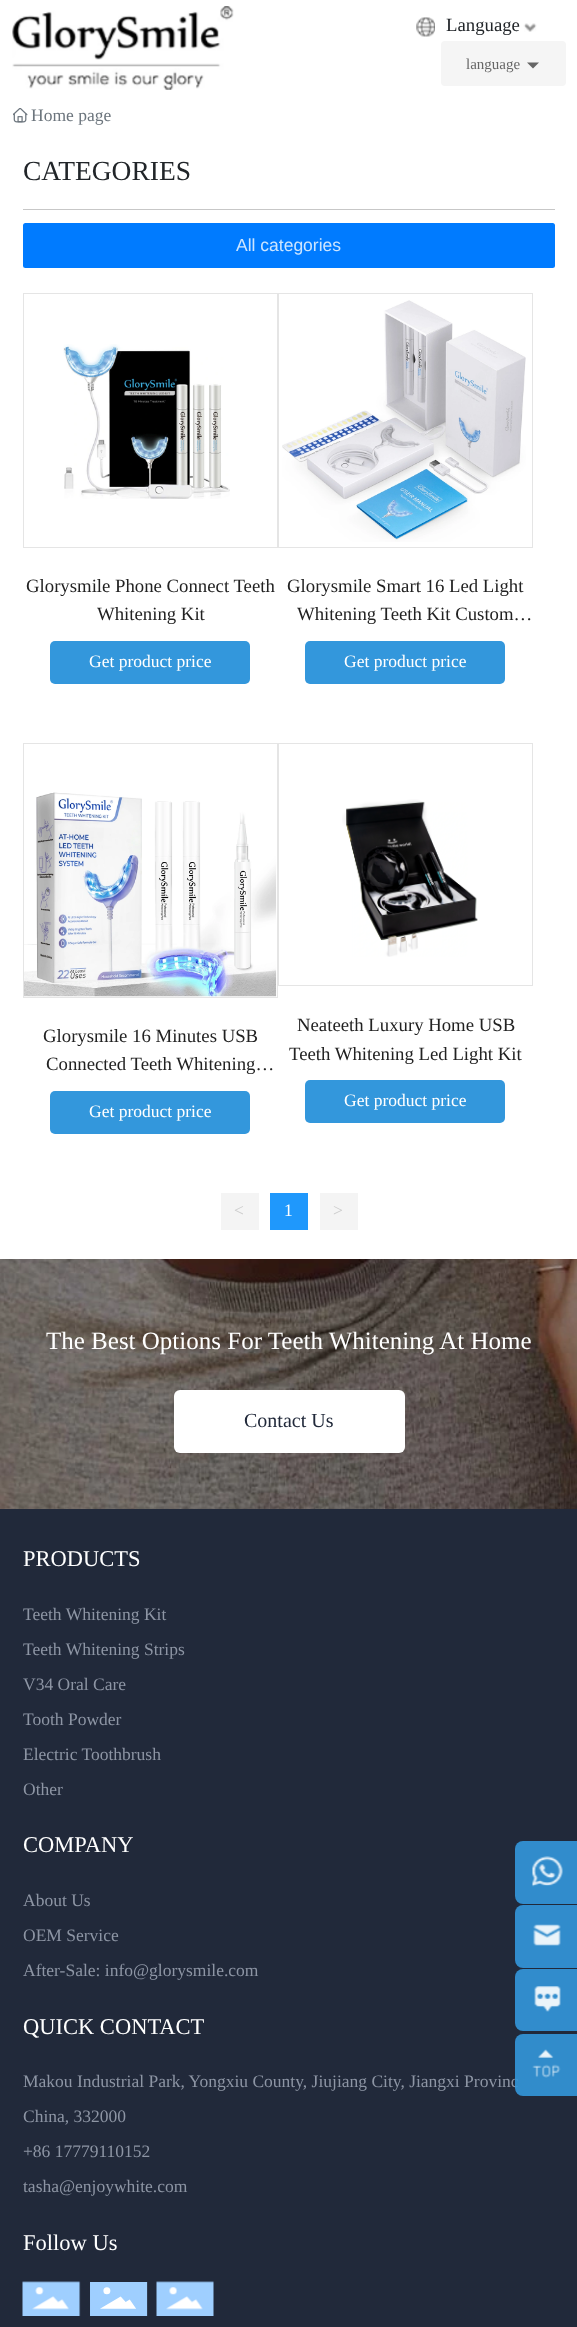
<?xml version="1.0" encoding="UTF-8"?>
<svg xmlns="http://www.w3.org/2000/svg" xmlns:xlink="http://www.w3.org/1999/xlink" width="577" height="2327">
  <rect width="100%" height="100%" fill="#ffffff" />
  <image x="12" y="6" width="222" height="84" xlink:href="image1.png" />
  <image x="416" y="17" width="19" height="20" xlink:href="image2.png" />
  <image x="523" y="23" width="14" height="9" xlink:href="image3.png" />
  <rect x="441" y="41" width="125" height="45" rx="4" fill="#f5f5f5" />
  <path d="M 527 62.5 l 6 6 l 6 -6 z" fill="#666666" />
  <image x="13" y="108" width="15" height="15" xlink:href="image4.png" />
  <rect x="23" y="209" width="532" height="1" fill="#c7c7c7" />
  <rect x="23" y="223" width="532" height="45" rx="2.5" fill="#007bff" />
  <rect x="23.5" y="293.5" width="254" height="254" fill="none" stroke="#e5e5e5" />
  <image x="63" y="344" width="167" height="155" xlink:href="image5.png" />
  <rect x="50" y="641" width="200" height="43" rx="5" fill="#3397dc" />
  <rect x="278.5" y="293.5" width="254" height="254" fill="none" stroke="#e5e5e5" />
  <image x="282" y="300" width="244" height="242" xlink:href="image6.png" />
  <rect x="305" y="641" width="200" height="43" rx="5" fill="#3397dc" />
  <rect x="23.5" y="743.5" width="254" height="254" fill="none" stroke="#e5e5e5" />
  <image x="24" y="792" width="253" height="205" xlink:href="image7.png" />
  <rect x="50" y="1091" width="200" height="43" rx="5" fill="#3397dc" />
  <rect x="278.5" y="743.5" width="254" height="242" fill="none" stroke="#e5e5e5" />
  <image x="342" y="799" width="136" height="158" xlink:href="image8.png" />
  <rect x="305" y="1080" width="200" height="43" rx="5" fill="#3397dc" />
  <rect x="221" y="1193" width="38" height="37" fill="#f4f4f4" />
  <rect x="270" y="1193" width="38" height="37" fill="#1f98fc" />
  <rect x="320" y="1193" width="38" height="37" fill="#f4f4f4" />
  <image x="0" y="1259" width="577" height="250" xlink:href="image9.png" />
  <rect x="174" y="1390" width="231" height="63" rx="6" fill="#ffffff" />
  <rect y="1509" width="577" height="818" fill="#21293a" />
  <image x="22" y="2281" width="59" height="35" xlink:href="image10.png" />
  <image x="90" y="2282" width="58" height="34" xlink:href="image11.png" />
  <image x="156" y="2281" width="58" height="35" xlink:href="image12.png" />
  <rect x="515" y="1841" width="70" height="63" rx="8" fill="#318ccc" />
  <image x="532" y="1856" width="31" height="31" xlink:href="image13.png" />
  <rect x="515" y="1905" width="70" height="63" rx="8" fill="#318ccc" />
  <image x="533" y="1924" width="28" height="22" xlink:href="image14.png" />
  <rect x="515" y="1969" width="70" height="62" rx="8" fill="#318ccc" />
  <image x="534" y="1986" width="27" height="26" xlink:href="image15.png" />
  <text x="446" y="31" style="font-family: Liberation Serif; font-size: 18.75px; fill: #212529">Language</text>
  <text x="466" y="69" style="font-family: Liberation Serif; font-size: 15px; fill: #666666">language</text>
  <text x="31" y="121" style="font-family: Liberation Serif; font-size: 17.5px; fill: #6c757d">Home page</text>
  <text x="23" y="180" style="font-family: Liberation Serif; font-size: 27.5px; fill: #212529">CATEGORIES</text>
  <text x="236" y="251" style="font-family: Liberation Sans; font-size: 17.5px; fill: #cce5ff">All categories</text>
  <text x="26" y="592" style="font-family: Liberation Serif; font-size: 18.75px; fill: #222222">Glorysmile Phone Connect Teeth</text>
  <text x="97" y="620" style="font-family: Liberation Serif; font-size: 18.75px; fill: #222222">Whitening Kit</text>
  <text x="89" y="667" style="font-family: Liberation Serif; font-size: 17.5px; fill: #ffffff">Get product price</text>
  <text x="287" y="592" style="font-family: Liberation Serif; font-size: 18.75px; fill: #222222">Glorysmile Smart 16 Led Light</text>
  <text x="297" y="620" style="font-family: Liberation Serif; font-size: 18.75px; fill: #222222">Whitening Teeth Kit Custom…</text>
  <text x="344" y="667" style="font-family: Liberation Serif; font-size: 17.5px; fill: #ffffff">Get product price</text>
  <text x="43" y="1042" style="font-family: Liberation Serif; font-size: 18.75px; fill: #222222">Glorysmile 16 Minutes USB</text>
  <text x="46" y="1070" style="font-family: Liberation Serif; font-size: 18.75px; fill: #222222">Connected Teeth Whitening…</text>
  <text x="89" y="1117" style="font-family: Liberation Serif; font-size: 17.5px; fill: #ffffff">Get product price</text>
  <text x="297" y="1031" style="font-family: Liberation Serif; font-size: 18.75px; fill: #222222">Neateeth Luxury Home USB</text>
  <text x="289" y="1060" style="font-family: Liberation Serif; font-size: 18.75px; fill: #222222">Teeth Whitening Led Light Kit</text>
  <text x="344" y="1106" style="font-family: Liberation Serif; font-size: 17.5px; fill: #ffffff">Get product price</text>
  <text x="234" y="1216" style="font-family: Liberation Serif; font-size: 17.5px; fill: #cccccc">&lt;</text>
  <text x="284" y="1216" style="font-family: Liberation Serif; font-size: 17.5px; fill: #ffffff">1</text>
  <text x="333" y="1216" style="font-family: Liberation Serif; font-size: 17.5px; fill: #cccccc">&gt;</text>
  <text x="46" y="1349" style="font-family: Liberation Serif; font-size: 25px; fill: #ffffff">The Best Options For Teeth Whitening At Home</text>
  <text x="244" y="1427" style="font-family: Liberation Serif; font-size: 20px; fill: #21293a">Contact Us</text>
  <text x="23" y="1566" style="font-family: Liberation Serif; font-size: 22.5px; fill: #ffffff">PRODUCTS</text>
  <text x="23" y="1620" style="font-family: Liberation Serif; font-size: 17.5px; fill: #8d95a4">Teeth Whitening Kit</text>
  <text x="23" y="1655" style="font-family: Liberation Serif; font-size: 17.5px; fill: #8d95a4">Teeth Whitening Strips</text>
  <text x="23" y="1690" style="font-family: Liberation Serif; font-size: 17.5px; fill: #8d95a4">V34 Oral Care</text>
  <text x="23" y="1725" style="font-family: Liberation Serif; font-size: 17.5px; fill: #8d95a4">Tooth Powder</text>
  <text x="23" y="1760" style="font-family: Liberation Serif; font-size: 17.5px; fill: #8d95a4">Electric Toothbrush</text>
  <text x="23" y="1795" style="font-family: Liberation Serif; font-size: 17.5px; fill: #8d95a4">Other</text>
  <text x="23" y="1852" style="font-family: Liberation Serif; font-size: 22.5px; fill: #ffffff">COMPANY</text>
  <text x="23" y="1906" style="font-family: Liberation Serif; font-size: 17.5px; fill: #8d95a4">About Us</text>
  <text x="23" y="1941" style="font-family: Liberation Serif; font-size: 17.5px; fill: #8d95a4">OEM Service</text>
  <text x="23" y="1976" style="font-family: Liberation Serif; font-size: 17.5px; fill: #8d95a4">After-Sale: info@glorysmile.com</text>
  <text x="23" y="2034" style="font-family: Liberation Serif; font-size: 22.5px; fill: #ffffff">QUICK CONTACT</text>
  <text x="23" y="2087" style="font-family: Liberation Serif; font-size: 17.5px; fill: #8d95a4">Makou Industrial Park, Yongxiu County, Jiujiang City, Jiangxi Provinc</text>
  <text x="23" y="2122" style="font-family: Liberation Serif; font-size: 17.5px; fill: #8d95a4">China, 332000</text>
  <text x="23" y="2157" style="font-family: Liberation Serif; font-size: 17.5px; fill: #8d95a4">+86 17779110152</text>
  <text x="23" y="2192" style="font-family: Liberation Serif; font-size: 17.5px; fill: #8d95a4">tasha@enjoywhite.com</text>
  <text x="23" y="2250" style="font-family: Liberation Serif; font-size: 22.5px; fill: #ffffff">Follow Us</text>
  <rect x="515" y="2034" width="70" height="62" rx="8" fill="#3397dc" fill-opacity="0.9" />
  <image x="532" y="2049" width="29" height="29" xlink:href="image16.png" />
</svg>
